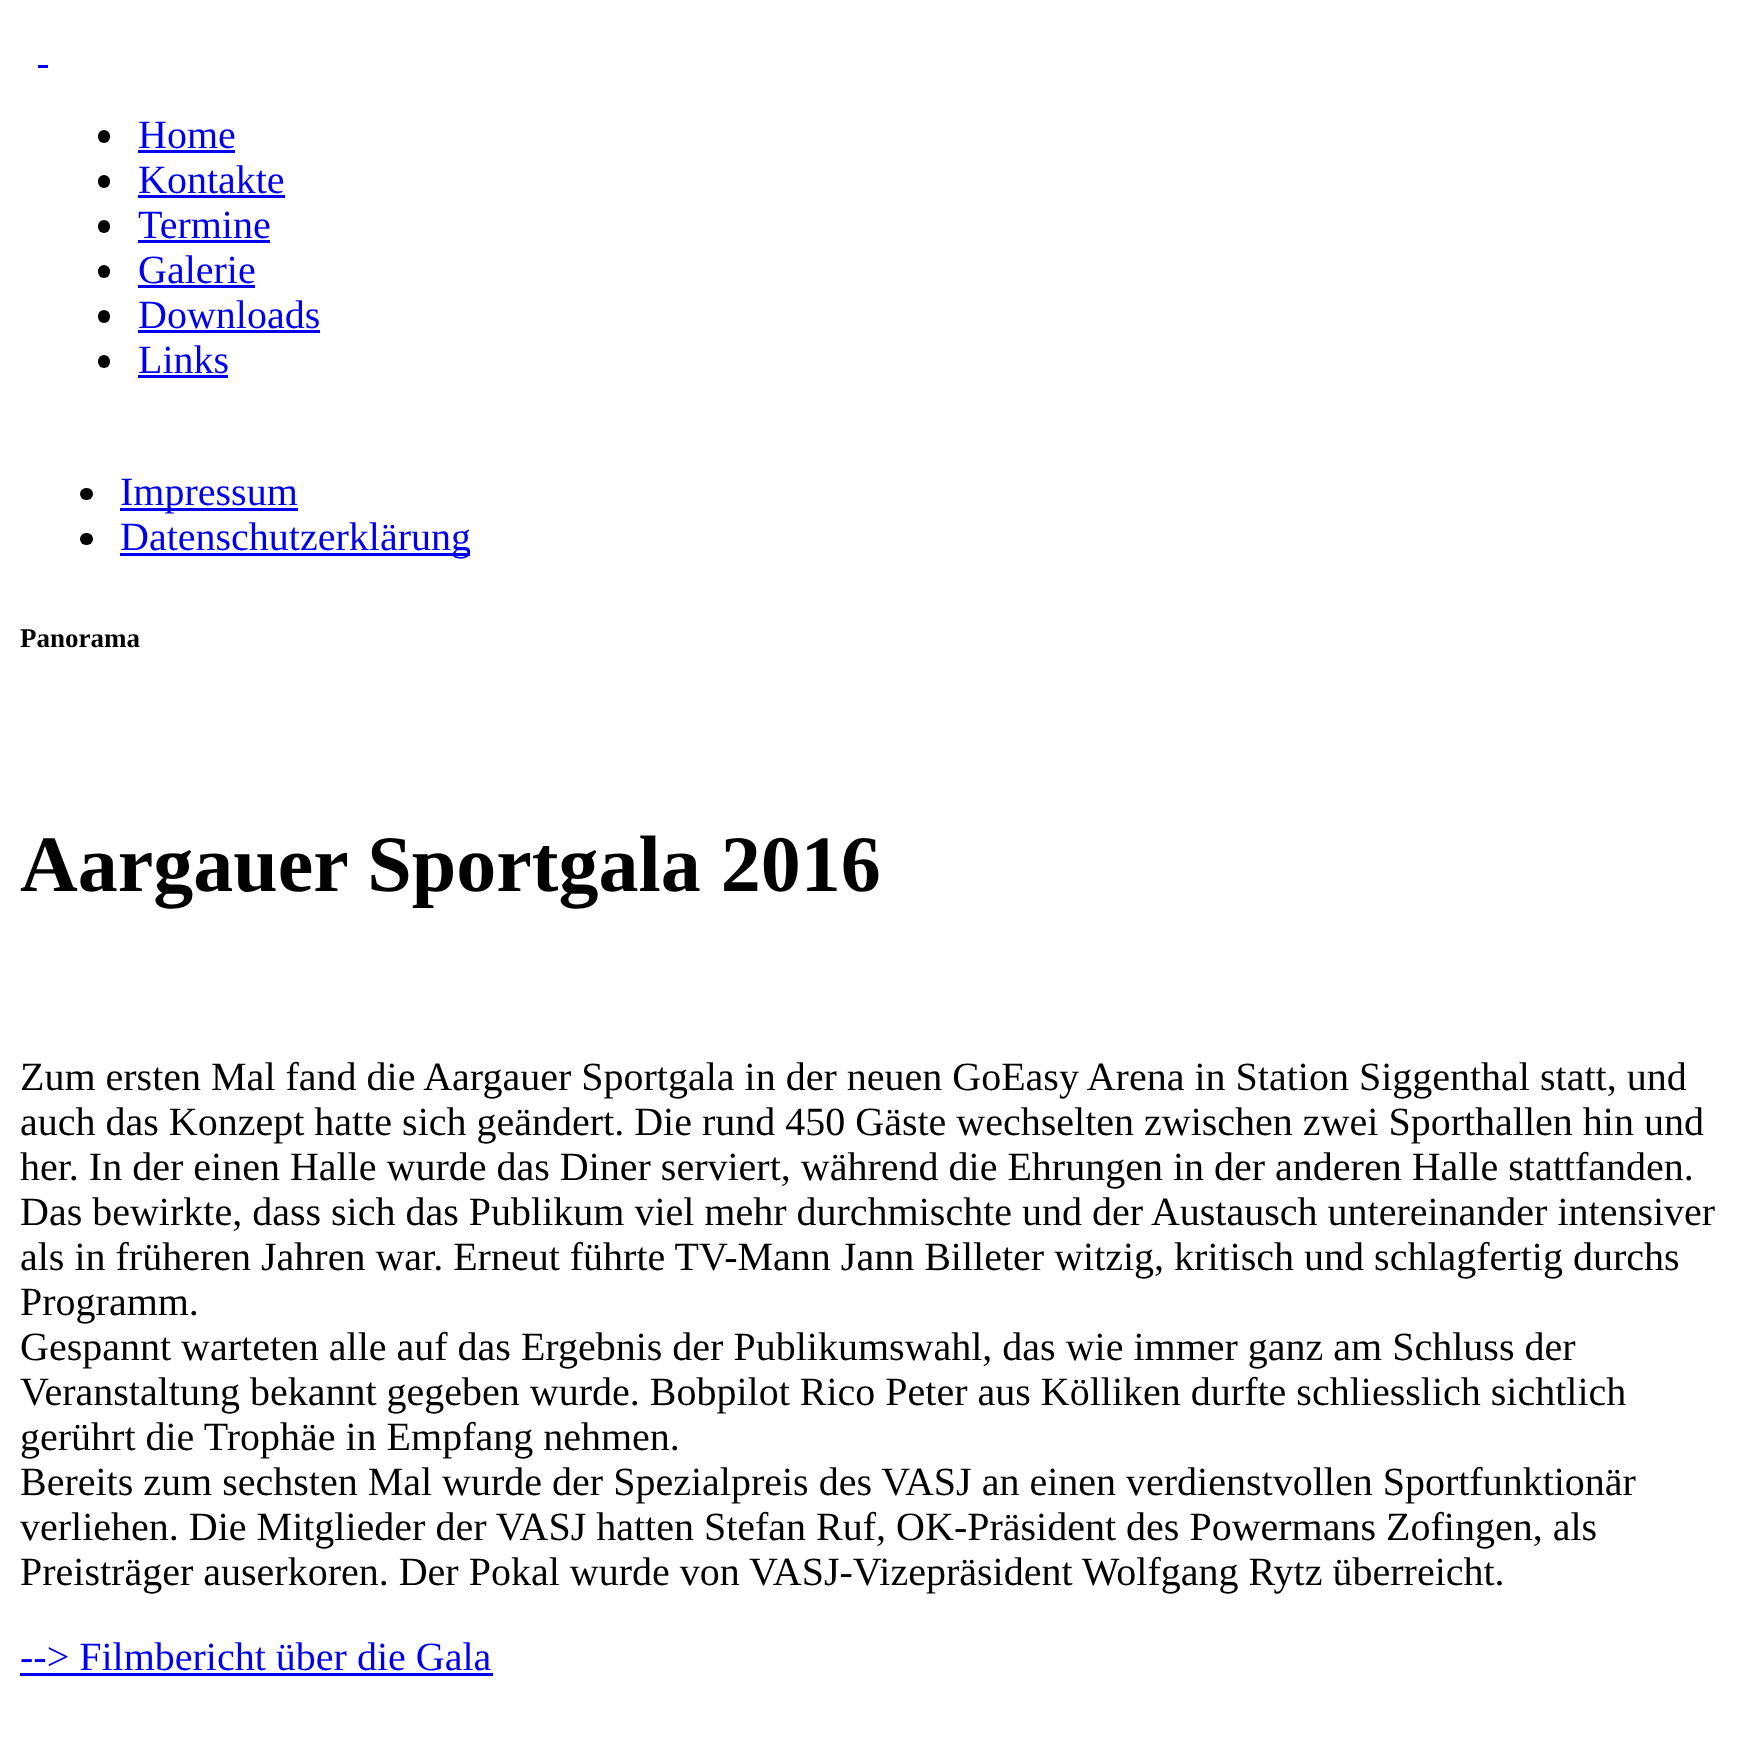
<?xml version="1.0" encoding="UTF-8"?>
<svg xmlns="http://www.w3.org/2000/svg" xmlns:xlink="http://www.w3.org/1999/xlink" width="1745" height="1747">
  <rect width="100%" height="100%" fill="#ffffff" />
  <rect x="38" y="65" width="10" height="3" fill="#0000ee" />
  <rect x="98" y="130" width="12" height="13" rx="6" fill="#000000" />
  <rect x="138" y="150" width="97" height="3" fill="#0000ee" />
  <rect x="98" y="175" width="12" height="13" rx="6" fill="#000000" />
  <rect x="138" y="195" width="147" height="3" fill="#0000ee" />
  <rect x="98" y="220" width="12" height="13" rx="6" fill="#000000" />
  <rect x="138" y="240" width="132" height="3" fill="#0000ee" />
  <rect x="98" y="265" width="12" height="13" rx="6" fill="#000000" />
  <rect x="138" y="285" width="117" height="3" fill="#0000ee" />
  <rect x="98" y="310" width="12" height="13" rx="6" fill="#000000" />
  <rect x="138" y="330" width="182" height="3" fill="#0000ee" />
  <rect x="98" y="355" width="12" height="13" rx="6" fill="#000000" />
  <rect x="138" y="375" width="90" height="3" fill="#0000ee" />
  <rect x="80" y="488" width="13" height="12" rx="6" fill="#000000" />
  <rect x="120" y="508" width="178" height="3" fill="#0000ee" />
  <rect x="80" y="533" width="13" height="12" rx="6" fill="#000000" />
  <rect x="120" y="553" width="350" height="3" fill="#0000ee" />
  <rect x="20" y="1673" width="473" height="3" fill="#0000ee" />
  <text x="138" y="148" style="font-family: Liberation Serif; font-size: 40px; fill: #0000ee">Home</text>
  <text x="138" y="193" style="font-family: Liberation Serif; font-size: 40px; fill: #0000ee">Kontakte</text>
  <text x="138" y="238" style="font-family: Liberation Serif; font-size: 40px; fill: #0000ee">Termine</text>
  <text x="138" y="283" style="font-family: Liberation Serif; font-size: 40px; fill: #0000ee">Galerie</text>
  <text x="138" y="328" style="font-family: Liberation Serif; font-size: 40px; fill: #0000ee">Downloads</text>
  <text x="138" y="373" style="font-family: Liberation Serif; font-size: 40px; fill: #0000ee">Links</text>
  <text x="120" y="505" style="font-family: Liberation Serif; font-size: 40px; fill: #0000ee">Impressum</text>
  <text x="120" y="550" style="font-family: Liberation Serif; font-size: 40px; fill: #0000ee">Datenschutzerklärung</text>
  <text x="20" y="647" style="font-family: Liberation Serif; font-size: 27px; font-weight: bold; fill: #000000">Panorama</text>
  <text x="20" y="891" style="font-family: Liberation Serif; font-size: 80px; font-weight: bold; fill: #000000">Aargauer Sportgala 2016</text>
  <text x="20" y="1090" style="font-family: Liberation Serif; font-size: 40px; fill: #000000">Zum ersten Mal fand die Aargauer Sportgala in der neuen GoEasy Arena in Station Siggenthal statt, und</text>
  <text x="20" y="1135" style="font-family: Liberation Serif; font-size: 40px; fill: #000000">auch das Konzept hatte sich geändert. Die rund 450 Gäste wechselten zwischen zwei Sporthallen hin und</text>
  <text x="20" y="1180" style="font-family: Liberation Serif; font-size: 40px; fill: #000000">her. In der einen Halle wurde das Diner serviert, während die Ehrungen in der anderen Halle stattfanden.</text>
  <text x="20" y="1225" style="font-family: Liberation Serif; font-size: 40px; fill: #000000">Das bewirkte, dass sich das Publikum viel mehr durchmischte und der Austausch untereinander intensiver</text>
  <text x="20" y="1270" style="font-family: Liberation Serif; font-size: 40px; fill: #000000">als in früheren Jahren war. Erneut führte TV-Mann Jann Billeter witzig, kritisch und schlagfertig durchs</text>
  <text x="20" y="1315" style="font-family: Liberation Serif; font-size: 40px; fill: #000000">Programm.</text>
  <text x="20" y="1360" style="font-family: Liberation Serif; font-size: 40px; fill: #000000">Gespannt warteten alle auf das Ergebnis der Publikumswahl, das wie immer ganz am Schluss der</text>
  <text x="20" y="1405" style="font-family: Liberation Serif; font-size: 40px; fill: #000000">Veranstaltung bekannt gegeben wurde. Bobpilot Rico Peter aus Kölliken durfte schliesslich sichtlich</text>
  <text x="20" y="1450" style="font-family: Liberation Serif; font-size: 40px; fill: #000000">gerührt die Trophäe in Empfang nehmen.</text>
  <text x="20" y="1495" style="font-family: Liberation Serif; font-size: 40px; fill: #000000">Bereits zum sechsten Mal wurde der Spezialpreis des VASJ an einen verdienstvollen Sportfunktionär</text>
  <text x="20" y="1540" style="font-family: Liberation Serif; font-size: 40px; fill: #000000">verliehen. Die Mitglieder der VASJ hatten Stefan Ruf, OK-Präsident des Powermans Zofingen, als</text>
  <text x="20" y="1585" style="font-family: Liberation Serif; font-size: 40px; fill: #000000">Preisträger auserkoren. Der Pokal wurde von VASJ-Vizepräsident Wolfgang Rytz überreicht.</text>
  <text x="20" y="1670" style="font-family: Liberation Serif; font-size: 40px; fill: #0000ee">--&gt; Filmbericht über die Gala</text>
</svg>
